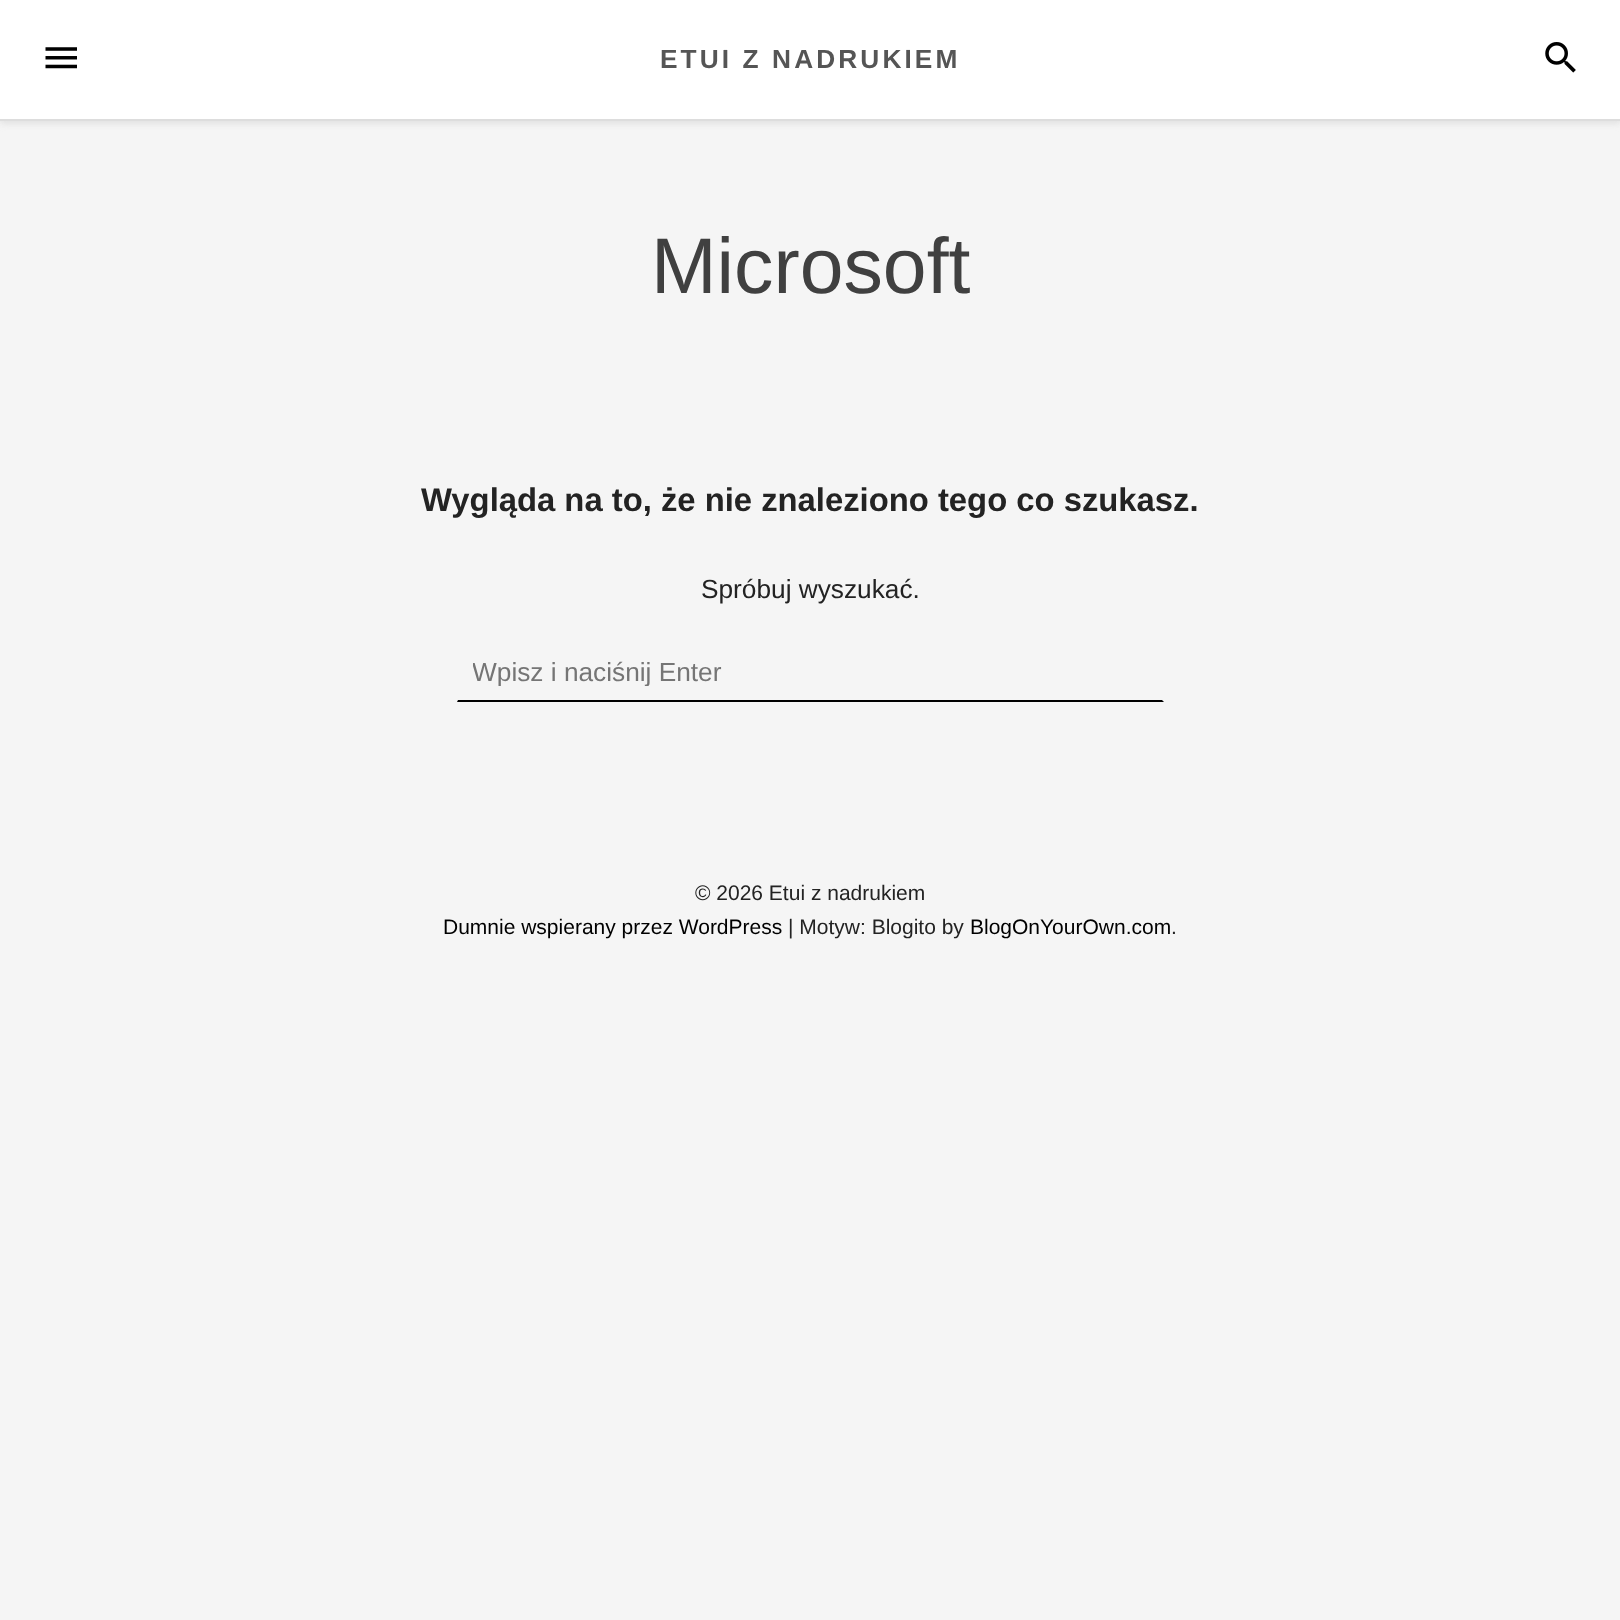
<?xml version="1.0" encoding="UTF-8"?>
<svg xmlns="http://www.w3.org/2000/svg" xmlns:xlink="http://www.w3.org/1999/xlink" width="1620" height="1620">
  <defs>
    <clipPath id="clip1"><rect x="473" y="656" width="670" height="30" /></clipPath>
  </defs>
  <rect width="100%" height="100%" fill="#f5f5f5" />
  <rect y="2" width="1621" height="121" fill="#dddddd" filter="blur(3.5px)" />
  <rect width="1620" height="119" fill="#ffffff" />
  <rect y="119" width="1620" height="2" fill="#dddddd" />
  <image x="45" y="47" width="32" height="22" xlink:href="image1.png" />
  <image x="1545" y="42" width="31" height="31" xlink:href="image2.png" />
  <path d="M 1164 702 h -707 l 1 -2 h 704 z" fill="#000000" />
  <text x="660" y="68" style="font-family: Liberation Sans; font-size: 26.25px; font-weight: bold; letter-spacing: 3.1px; fill: #555555">ETUI Z NADRUKIEM</text>
  <text x="651" y="293" style="font-family: Liberation Sans; font-size: 78.75px; fill: #404040">Microsoft</text>
  <text x="421" y="511" style="font-family: Liberation Sans; font-size: 32.8px; font-weight: bold; fill: #232323">Wygląda na to, że nie znaleziono tego co szukasz.</text>
  <text x="701" y="598" style="font-family: Liberation Sans; font-size: 26.25px; fill: #232323">Spróbuj wyszukać.</text>
  <g clip-path="url(#clip1)">
    <text x="472" y="681" style="font-family: Liberation Sans; font-size: 26.25px; fill: #757575">Wpisz i naciśnij Enter</text>
  </g>
  <text x="695" y="900" style="font-family: Liberation Sans; font-size: 21px; fill: #232323">© 2026 Etui z nadrukiem</text>
  <text x="443" y="934" style="font-family: Liberation Sans; font-size: 21px; fill: #000000">Dumnie wspierany przez WordPress</text>
  <text x="788" y="934" style="font-family: Liberation Sans; font-size: 21px; fill: #232323">| Motyw: Blogito by</text>
  <text x="970" y="934" style="font-family: Liberation Sans; font-size: 21px; fill: #000000">BlogOnYourOwn.com</text>
  <text x="1171" y="934" style="font-family: Liberation Sans; font-size: 21px; fill: #232323">.</text>
</svg>
